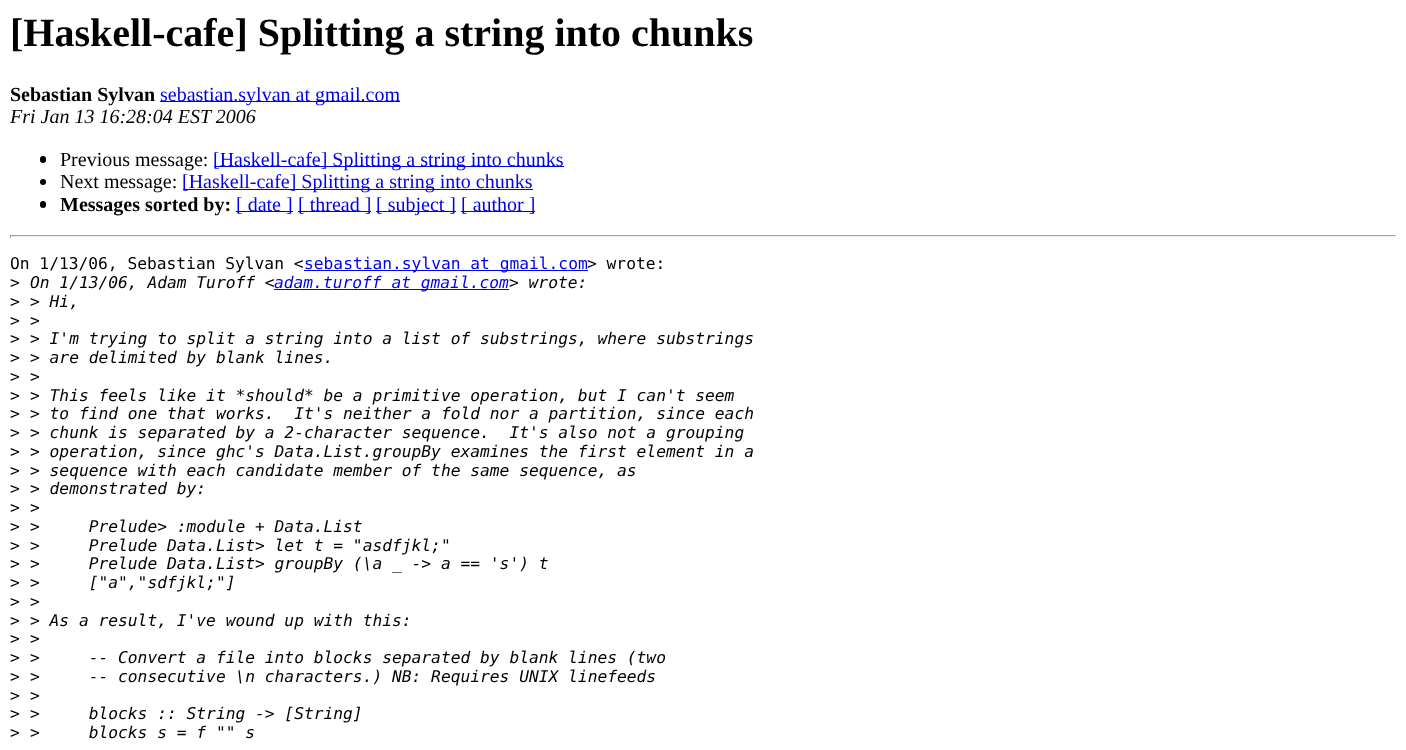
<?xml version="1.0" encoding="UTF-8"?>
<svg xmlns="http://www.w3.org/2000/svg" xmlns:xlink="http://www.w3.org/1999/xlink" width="1406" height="750">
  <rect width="100%" height="100%" fill="#ffffff" />
  <rect x="160" y="101" width="240" height="1" fill="#0000ee" />
  <rect x="40" y="156" width="6" height="7" rx="3" fill="#000000" />
  <rect x="214" y="166" width="350" height="1" fill="#0000ee" />
  <circle cx="43" cy="182" r="3" fill="#000000" />
  <rect x="183" y="189" width="350" height="1" fill="#0000ee" />
  <rect x="40" y="201" width="6" height="7" rx="3" fill="#000000" />
  <rect x="236" y="211" width="57" height="1" fill="#0000ee" />
  <rect x="298" y="211" width="73" height="1" fill="#0000ee" />
  <rect x="376" y="211" width="80" height="1" fill="#0000ee" />
  <rect x="461" y="211" width="74" height="1" fill="#0000ee" />
  <rect x="10" y="235" width="1386" height="1" fill="#9f9f9f" />
  <rect x="1395" y="235" width="1" height="3" fill="#eeeeee" />
  <rect x="10" y="236" width="1386" height="1" fill="#eeeeee" />
  <rect x="10" y="235" width="1" height="3" fill="#9f9f9f" />
  <rect x="304" y="270" width="284" height="1" fill="#0000ee" />
  <rect x="274" y="289" width="235" height="1" fill="#0000ee" />
  <text x="10" y="46" style="font-family: Liberation Serif; font-size: 40px; font-weight: bold; fill: #000000">[Haskell-cafe] Splitting a string into chunks</text>
  <text x="10" y="101" style="font-family: Liberation Serif; font-size: 20px; font-weight: bold; fill: #000000">Sebastian Sylvan</text>
  <text x="160" y="101" style="font-family: Liberation Serif; font-size: 20px; fill: #0000ee">sebastian.sylvan at gmail.com</text>
  <text x="10" y="123" style="font-family: Liberation Serif; font-size: 20px; font-style: italic; fill: #000000">Fri Jan 13 16:28:04 EST 2006</text>
  <text x="60" y="166" style="font-family: Liberation Serif; font-size: 20px; fill: #000000">Previous message:</text>
  <text x="213" y="166" style="font-family: Liberation Serif; font-size: 20px; fill: #0000ee">[Haskell-cafe] Splitting a string into chunks</text>
  <text x="60" y="188" style="font-family: Liberation Serif; font-size: 20px; fill: #000000">Next message:</text>
  <text x="182" y="188" style="font-family: Liberation Serif; font-size: 20px; fill: #0000ee">[Haskell-cafe] Splitting a string into chunks</text>
  <text x="60" y="211" style="font-family: Liberation Serif; font-size: 20px; font-weight: bold; fill: #000000">Messages sorted by:</text>
  <text x="236" y="211" style="font-family: Liberation Serif; font-size: 20px; fill: #0000ee">[ date ]</text>
  <text x="298" y="211" style="font-family: Liberation Serif; font-size: 20px; fill: #0000ee">[ thread ]</text>
  <text x="376" y="211" style="font-family: Liberation Serif; font-size: 20px; fill: #0000ee">[ subject ]</text>
  <text x="461" y="211" style="font-family: Liberation Serif; font-size: 20px; fill: #0000ee">[ author ]</text>
  <text x="10" y="269" style="font-family: DejaVu Sans Mono; font-size: 16.25px; fill: #000000">On 1/13/06, Sebastian Sylvan &lt;</text>
  <text x="304" y="269" style="font-family: DejaVu Sans Mono; font-size: 16.25px; fill: #0000ee">sebastian.sylvan at gmail.com</text>
  <text x="587" y="269" style="font-family: DejaVu Sans Mono; font-size: 16.25px; fill: #000000">&gt; wrote:</text>
  <text x="10" y="288" style="font-family: DejaVu Sans Mono; font-size: 16.25px; fill: #000000">&gt;</text>
  <text x="30" y="288" style="font-family: DejaVu Sans Mono; font-size: 16.25px; font-style: italic; fill: #000000">On 1/13/06, Adam Turoff &lt;</text>
  <text x="274" y="288" style="font-family: DejaVu Sans Mono; font-size: 16.25px; font-style: italic; fill: #0000ee">adam.turoff at gmail.com</text>
  <text x="509" y="288" style="font-family: DejaVu Sans Mono; font-size: 16.25px; font-style: italic; fill: #000000">&gt; wrote:</text>
  <text x="10" y="307" style="font-family: DejaVu Sans Mono; font-size: 16.25px; fill: #000000">&gt;</text>
  <text x="30" y="307" style="font-family: DejaVu Sans Mono; font-size: 16.25px; font-style: italic; fill: #000000">&gt; Hi,</text>
  <text x="10" y="326" style="font-family: DejaVu Sans Mono; font-size: 16.25px; fill: #000000">&gt;</text>
  <text x="30" y="326" style="font-family: DejaVu Sans Mono; font-size: 16.25px; font-style: italic; fill: #000000">&gt;</text>
  <text x="10" y="344" style="font-family: DejaVu Sans Mono; font-size: 16.25px; fill: #000000">&gt;</text>
  <text x="30" y="344" style="font-family: DejaVu Sans Mono; font-size: 16.25px; font-style: italic; fill: #000000">&gt; I'm trying to split a string into a list of substrings, where substrings</text>
  <text x="10" y="363" style="font-family: DejaVu Sans Mono; font-size: 16.25px; fill: #000000">&gt;</text>
  <text x="30" y="363" style="font-family: DejaVu Sans Mono; font-size: 16.25px; font-style: italic; fill: #000000">&gt; are delimited by blank lines.</text>
  <text x="10" y="382" style="font-family: DejaVu Sans Mono; font-size: 16.25px; fill: #000000">&gt;</text>
  <text x="30" y="382" style="font-family: DejaVu Sans Mono; font-size: 16.25px; font-style: italic; fill: #000000">&gt;</text>
  <text x="10" y="401" style="font-family: DejaVu Sans Mono; font-size: 16.25px; fill: #000000">&gt;</text>
  <text x="30" y="401" style="font-family: DejaVu Sans Mono; font-size: 16.25px; font-style: italic; fill: #000000">&gt; This feels like it *should* be a primitive operation, but I can't seem</text>
  <text x="10" y="419" style="font-family: DejaVu Sans Mono; font-size: 16.25px; fill: #000000">&gt;</text>
  <text x="30" y="419" style="font-family: DejaVu Sans Mono; font-size: 16.25px; font-style: italic; fill: #000000" xml:space="preserve">&gt; to find one that works.  It's neither a fold nor a partition, since each</text>
  <text x="10" y="438" style="font-family: DejaVu Sans Mono; font-size: 16.25px; fill: #000000">&gt;</text>
  <text x="30" y="438" style="font-family: DejaVu Sans Mono; font-size: 16.25px; font-style: italic; fill: #000000" xml:space="preserve">&gt; chunk is separated by a 2-character sequence.  It's also not a grouping</text>
  <text x="10" y="457" style="font-family: DejaVu Sans Mono; font-size: 16.25px; fill: #000000">&gt;</text>
  <text x="30" y="457" style="font-family: DejaVu Sans Mono; font-size: 16.25px; font-style: italic; fill: #000000">&gt; operation, since ghc's Data.List.groupBy examines the first element in a</text>
  <text x="10" y="476" style="font-family: DejaVu Sans Mono; font-size: 16.25px; fill: #000000">&gt;</text>
  <text x="30" y="476" style="font-family: DejaVu Sans Mono; font-size: 16.25px; font-style: italic; fill: #000000">&gt; sequence with each candidate member of the same sequence, as</text>
  <text x="10" y="494" style="font-family: DejaVu Sans Mono; font-size: 16.25px; fill: #000000">&gt;</text>
  <text x="30" y="494" style="font-family: DejaVu Sans Mono; font-size: 16.25px; font-style: italic; fill: #000000">&gt; demonstrated by:</text>
  <text x="10" y="513" style="font-family: DejaVu Sans Mono; font-size: 16.25px; fill: #000000">&gt;</text>
  <text x="30" y="513" style="font-family: DejaVu Sans Mono; font-size: 16.25px; font-style: italic; fill: #000000">&gt;</text>
  <text x="10" y="532" style="font-family: DejaVu Sans Mono; font-size: 16.25px; fill: #000000">&gt;</text>
  <text x="30" y="532" style="font-family: DejaVu Sans Mono; font-size: 16.25px; font-style: italic; fill: #000000" xml:space="preserve">&gt;     Prelude&gt; :module + Data.List</text>
  <text x="10" y="551" style="font-family: DejaVu Sans Mono; font-size: 16.25px; fill: #000000">&gt;</text>
  <text x="30" y="551" style="font-family: DejaVu Sans Mono; font-size: 16.25px; font-style: italic; fill: #000000" xml:space="preserve">&gt;     Prelude Data.List&gt; let t = "asdfjkl;"</text>
  <text x="10" y="569" style="font-family: DejaVu Sans Mono; font-size: 16.25px; fill: #000000">&gt;</text>
  <text x="30" y="569" style="font-family: DejaVu Sans Mono; font-size: 16.25px; font-style: italic; fill: #000000" xml:space="preserve">&gt;     Prelude Data.List&gt; groupBy (\a _ -&gt; a == 's') t</text>
  <text x="10" y="588" style="font-family: DejaVu Sans Mono; font-size: 16.25px; fill: #000000">&gt;</text>
  <text x="30" y="588" style="font-family: DejaVu Sans Mono; font-size: 16.25px; font-style: italic; fill: #000000" xml:space="preserve">&gt;     ["a","sdfjkl;"]</text>
  <text x="10" y="607" style="font-family: DejaVu Sans Mono; font-size: 16.25px; fill: #000000">&gt;</text>
  <text x="30" y="607" style="font-family: DejaVu Sans Mono; font-size: 16.25px; font-style: italic; fill: #000000">&gt;</text>
  <text x="10" y="626" style="font-family: DejaVu Sans Mono; font-size: 16.25px; fill: #000000">&gt;</text>
  <text x="30" y="626" style="font-family: DejaVu Sans Mono; font-size: 16.25px; font-style: italic; fill: #000000">&gt; As a result, I've wound up with this:</text>
  <text x="10" y="644" style="font-family: DejaVu Sans Mono; font-size: 16.25px; fill: #000000">&gt;</text>
  <text x="30" y="644" style="font-family: DejaVu Sans Mono; font-size: 16.25px; font-style: italic; fill: #000000">&gt;</text>
  <text x="10" y="663" style="font-family: DejaVu Sans Mono; font-size: 16.25px; fill: #000000">&gt;</text>
  <text x="30" y="663" style="font-family: DejaVu Sans Mono; font-size: 16.25px; font-style: italic; fill: #000000" xml:space="preserve">&gt;     -- Convert a file into blocks separated by blank lines (two</text>
  <text x="10" y="682" style="font-family: DejaVu Sans Mono; font-size: 16.25px; fill: #000000">&gt;</text>
  <text x="30" y="682" style="font-family: DejaVu Sans Mono; font-size: 16.25px; font-style: italic; fill: #000000" xml:space="preserve">&gt;     -- consecutive \n characters.) NB: Requires UNIX linefeeds</text>
  <text x="10" y="701" style="font-family: DejaVu Sans Mono; font-size: 16.25px; fill: #000000">&gt;</text>
  <text x="30" y="701" style="font-family: DejaVu Sans Mono; font-size: 16.25px; font-style: italic; fill: #000000">&gt;</text>
  <text x="10" y="719" style="font-family: DejaVu Sans Mono; font-size: 16.25px; fill: #000000">&gt;</text>
  <text x="30" y="719" style="font-family: DejaVu Sans Mono; font-size: 16.25px; font-style: italic; fill: #000000" xml:space="preserve">&gt;     blocks :: String -&gt; [String]</text>
  <text x="10" y="738" style="font-family: DejaVu Sans Mono; font-size: 16.25px; fill: #000000">&gt;</text>
  <text x="30" y="738" style="font-family: DejaVu Sans Mono; font-size: 16.25px; font-style: italic; fill: #000000" xml:space="preserve">&gt;     blocks s = f "" s</text>
</svg>
